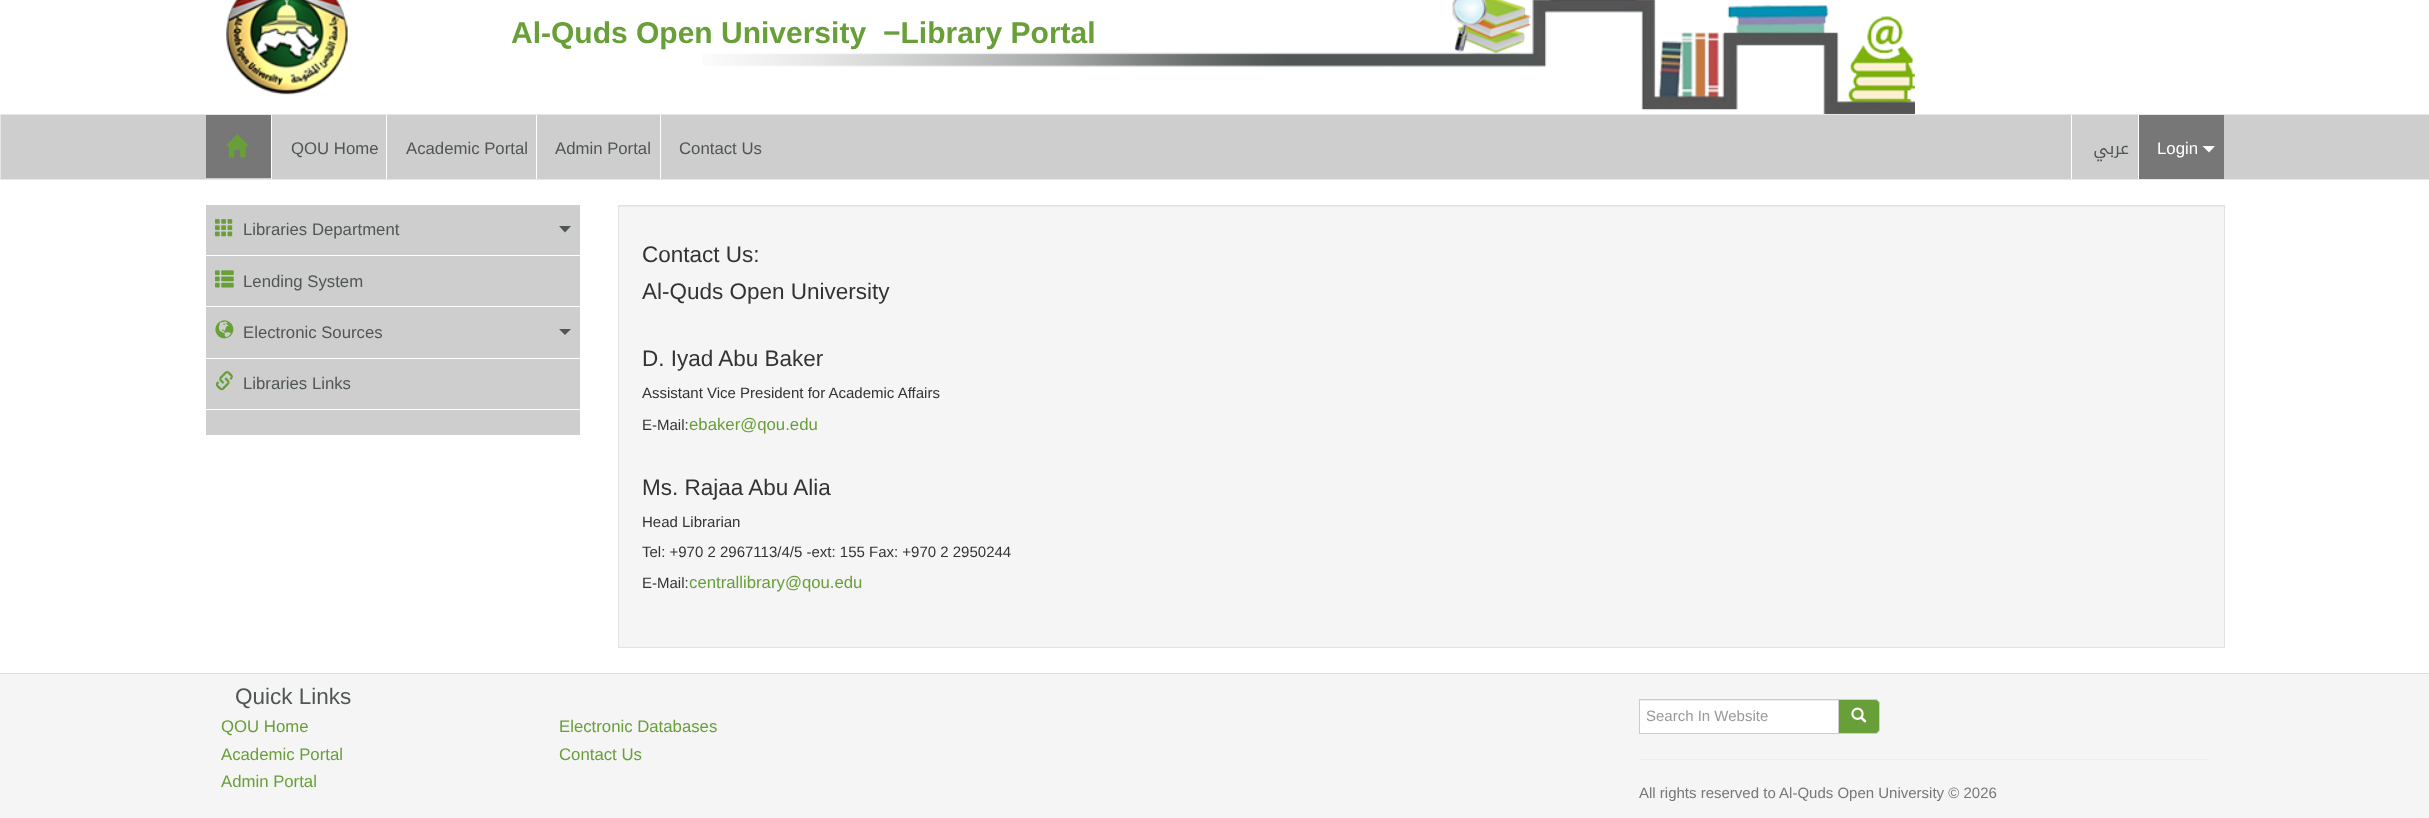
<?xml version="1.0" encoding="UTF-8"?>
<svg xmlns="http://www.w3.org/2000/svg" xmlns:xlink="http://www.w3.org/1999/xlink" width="2429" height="818">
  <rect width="100%" height="100%" fill="#ffffff" />
  <image x="702" y="0" width="1213" height="114" xlink:href="image1.png" />
  <image x="226" y="0" width="122" height="95" xlink:href="image2.png" />
  <rect x="0.5" y="114.5" width="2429" height="65" fill="#cecece" stroke="#e7e7e7" />
  <rect x="206" y="115" width="65" height="63" fill="#777777" />
  <image x="225" y="134" width="24" height="24" xlink:href="image3.png" />
  <rect x="271" y="115" width="1" height="64" fill="#ffffff" />
  <rect x="386" y="115" width="1" height="64" fill="#ffffff" />
  <rect x="536" y="115" width="1" height="64" fill="#ffffff" />
  <rect x="660" y="115" width="1" height="64" fill="#ffffff" />
  <rect x="2071" y="115" width="1" height="64" fill="#ffffff" />
  <rect x="2139" y="115" width="85" height="64" fill="#777777" />
  <rect x="2138" y="115" width="1" height="64" fill="#ffffff" />
  <path d="M 2202.5 146 h 12.5 l -6 6.5 z" fill="#ffffff" />
  <rect x="206" y="205" width="374" height="230" fill="#cecece" />
  <rect x="206" y="255" width="374" height="1" fill="#ffffff" />
  <image x="215" y="219" width="18" height="18" xlink:href="image4.png" />
  <path d="M 559 226 h 12 l -6 6.5 z" fill="#505655" />
  <rect x="206" y="306" width="374" height="1" fill="#ffffff" />
  <image x="215" y="270" width="19" height="18" xlink:href="image5.png" />
  <rect x="206" y="358" width="374" height="1" fill="#ffffff" />
  <image x="215" y="320" width="19" height="19" xlink:href="image6.png" />
  <path d="M 559 329 h 12 l -6 6 z" fill="#505655" />
  <rect x="206" y="409" width="374" height="1" fill="#ffffff" />
  <image x="215" y="371" width="18" height="20" xlink:href="image7.png" />
  <rect x="619" y="207" width="1605" height="440" fill="#f5f5f5" />
  <rect x="619" y="206" width="1605" height="1" fill="#e9e9e9" />
  <rect x="618.5" y="205.5" width="1606" height="442" fill="none" stroke="#e3e3e3" />
  <rect y="674" width="2429" height="144" fill="#f5f5f5" />
  <rect y="673" width="2429" height="1" fill="#dddddd" />
  <rect x="1640" y="701" width="198" height="32" fill="#ffffff" />
  <rect x="1640" y="700" width="198" height="1" fill="#ececec" />
  <path d="M 1838.5 699.5 h 36.5 c 2.5 0 4.5 2 4.5 4.5 v 25 c 0 2.5 -2 4.5 -4.5 4.5 h -36.5 z" fill="#689f38" stroke="#cecece" />
  <rect x="1639.5" y="699.5" width="199" height="34" fill="none" stroke="#cccccc" />
  <image x="1851" y="707" width="16" height="16" xlink:href="image8.png" />
  <rect x="1639" y="759" width="570" height="1" fill="#eeeeee" />
  <text x="511" y="43" style="font-family: Liberation Sans; font-size: 30px; font-weight: bold; fill: #689f38">Al-Quds Open University</text>
  <text x="883" y="43" style="font-family: Liberation Sans; font-size: 30px; font-weight: bold; fill: #689f38">−Library Portal</text>
  <text x="291" y="154" style="font-family: Liberation Sans; font-size: 16.75px; fill: #505655">QOU Home</text>
  <text x="406" y="154" style="font-family: Liberation Sans; font-size: 16.75px; fill: #505655">Academic Portal</text>
  <text x="555" y="154" style="font-family: Liberation Sans; font-size: 16.75px; fill: #505655">Admin Portal</text>
  <text x="679" y="154" style="font-family: Liberation Sans; font-size: 16.75px; fill: #505655">Contact Us</text>
  <text x="2129" y="154" style="font-family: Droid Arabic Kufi; font-size: 16.75px; direction: rtl; fill: #505655">عربي</text>
  <text x="2157" y="154" style="font-family: Liberation Sans; font-size: 16.75px; fill: #ffffff">Login</text>
  <text x="243" y="235" style="font-family: Liberation Sans; font-size: 16.75px; fill: #505655">Libraries Department</text>
  <text x="243" y="287" style="font-family: Liberation Sans; font-size: 16.75px; fill: #505655">Lending System</text>
  <text x="243" y="338" style="font-family: Liberation Sans; font-size: 16.75px; fill: #505655">Electronic Sources</text>
  <text x="243" y="389" style="font-family: Liberation Sans; font-size: 16.75px; fill: #505655">Libraries Links</text>
  <text x="642" y="262" style="font-family: Liberation Sans; font-size: 22.5px; fill: #333333">Contact Us:</text>
  <text x="642" y="299" style="font-family: Liberation Sans; font-size: 22.5px; fill: #333333">Al-Quds Open University</text>
  <text x="642" y="366" style="font-family: Liberation Sans; font-size: 22.5px; fill: #333333">D. Iyad Abu Baker</text>
  <text x="642" y="398" style="font-family: Liberation Sans; font-size: 15px; fill: #333333">Assistant Vice President for Academic Affairs</text>
  <text x="642" y="430" style="font-family: Liberation Sans; font-size: 15px; fill: #333333">E-Mail:</text>
  <text x="689" y="430" style="font-family: Liberation Sans; font-size: 16.75px; fill: #689f38">ebaker@qou.edu</text>
  <text x="642" y="495" style="font-family: Liberation Sans; font-size: 22.5px; fill: #333333">Ms. Rajaa Abu Alia</text>
  <text x="642" y="527" style="font-family: Liberation Sans; font-size: 15px; fill: #333333">Head Librarian</text>
  <text x="642" y="557" style="font-family: Liberation Sans; font-size: 15px; fill: #333333">Tel: +970 2 2967113/4/5 -ext: 155 Fax: +970 2 2950244</text>
  <text x="642" y="588" style="font-family: Liberation Sans; font-size: 15px; fill: #333333">E-Mail:</text>
  <text x="689" y="588" style="font-family: Liberation Sans; font-size: 16.75px; fill: #689f38">centrallibrary@qou.edu</text>
  <text x="235" y="704" style="font-family: Liberation Sans; font-size: 22.5px; fill: #505655">Quick Links</text>
  <text x="221" y="732" style="font-family: Liberation Sans; font-size: 16.75px; fill: #689f38">QOU Home</text>
  <text x="221" y="760" style="font-family: Liberation Sans; font-size: 16.75px; fill: #689f38">Academic Portal</text>
  <text x="221" y="787" style="font-family: Liberation Sans; font-size: 16.75px; fill: #689f38">Admin Portal</text>
  <text x="559" y="732" style="font-family: Liberation Sans; font-size: 16.75px; fill: #689f38">Electronic Databases</text>
  <text x="559" y="760" style="font-family: Liberation Sans; font-size: 16.75px; fill: #689f38">Contact Us</text>
  <text x="1646" y="721" style="font-family: Liberation Sans; font-size: 15px; fill: #999999">Search In Website</text>
  <text x="1639" y="798" style="font-family: Liberation Sans; font-size: 15px; fill: #777777">All rights reserved to Al-Quds Open University © 2026</text>
</svg>
